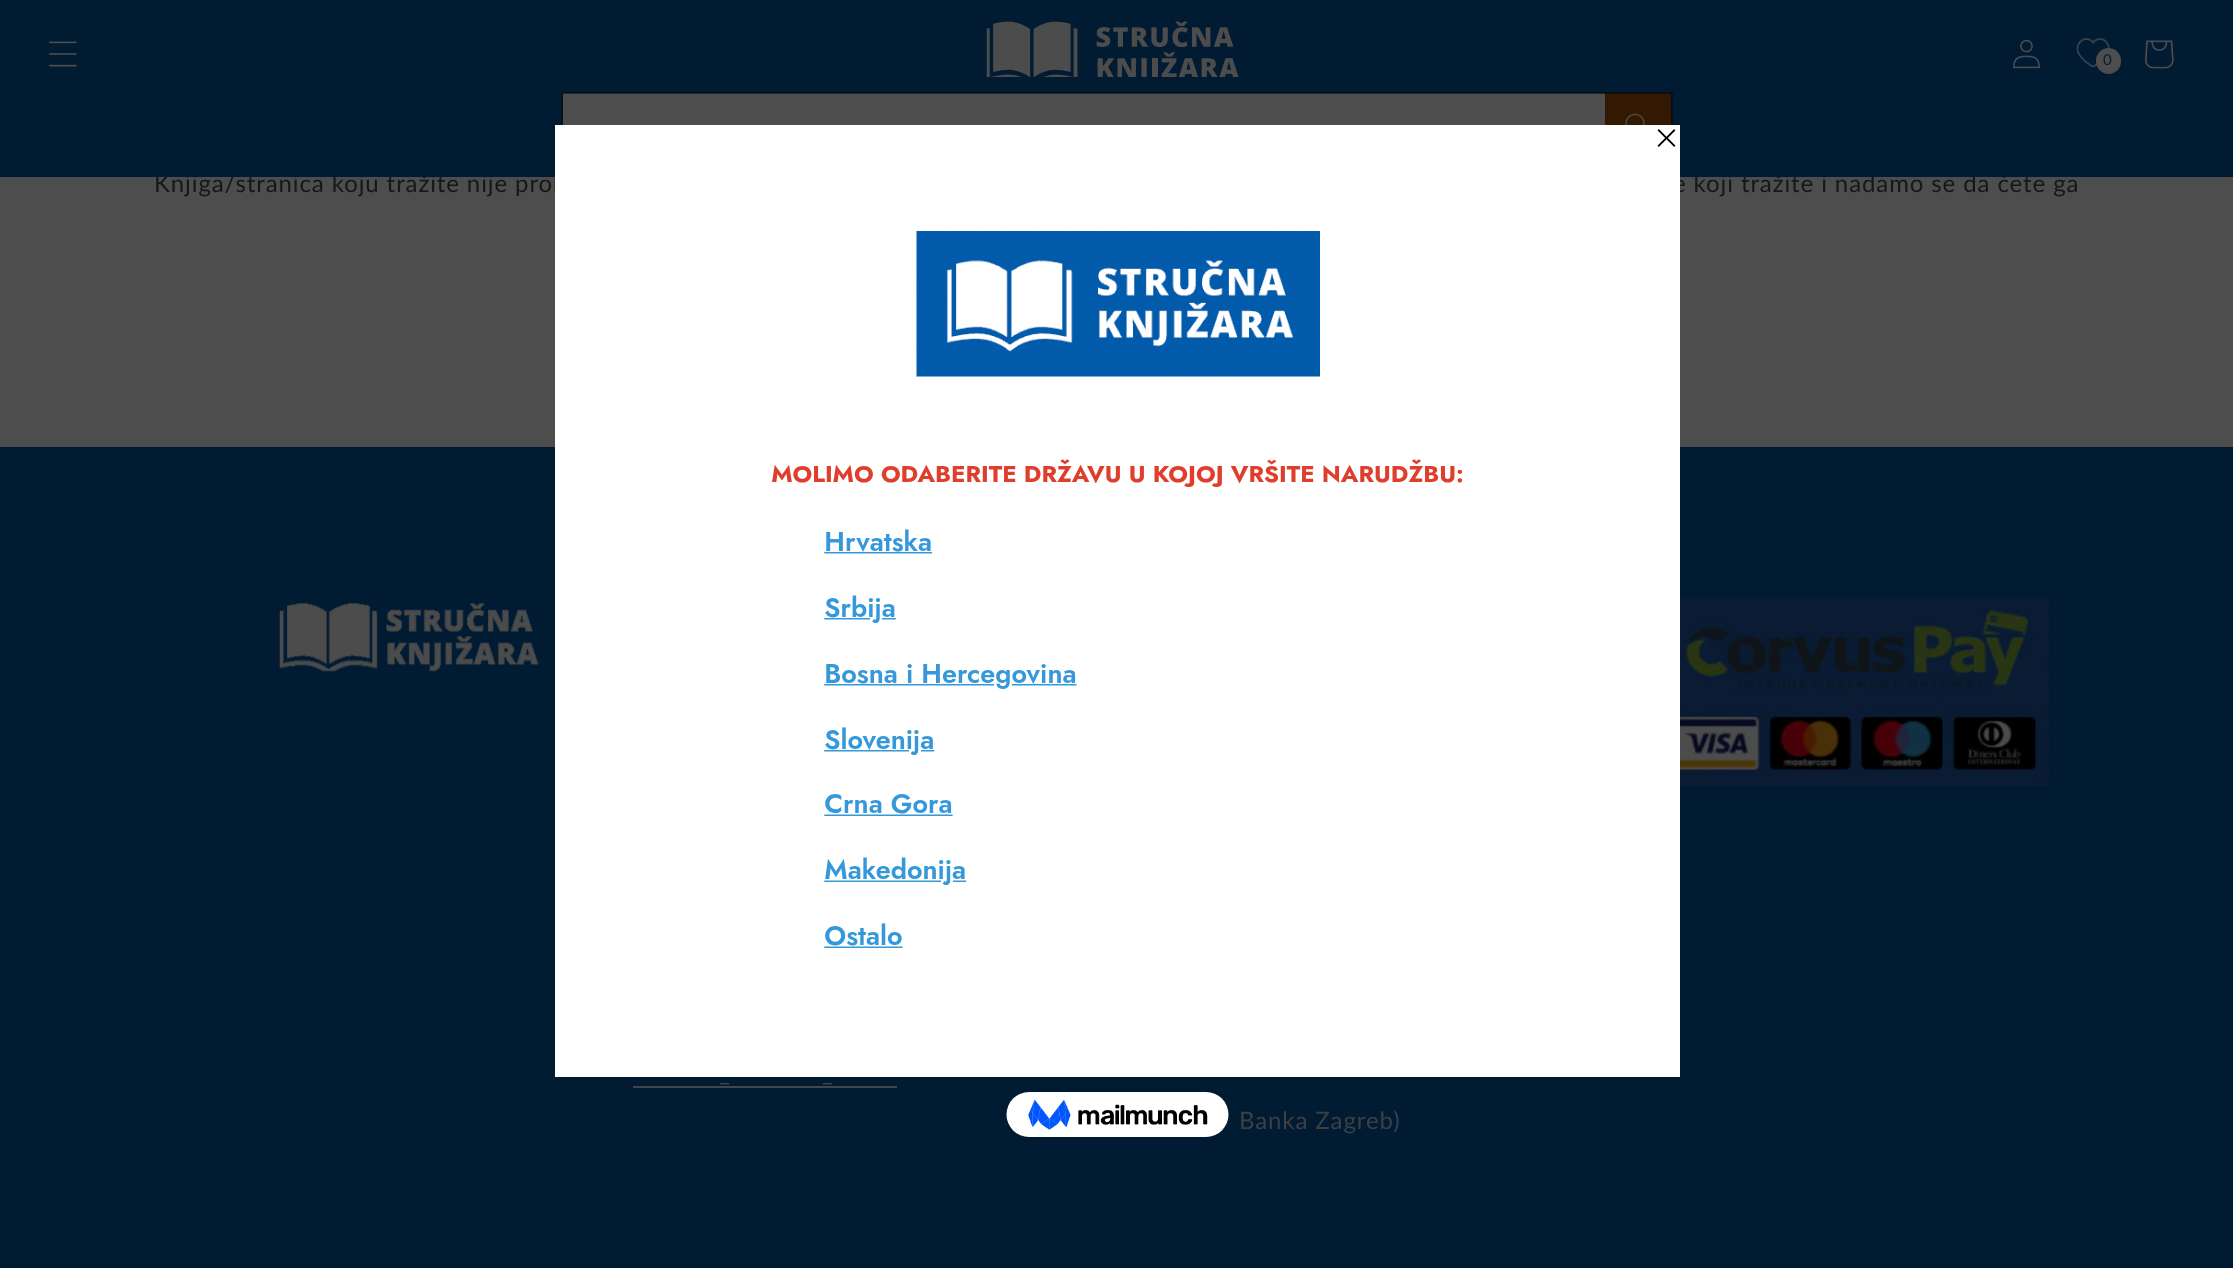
<?xml version="1.0" encoding="UTF-8"?>
<svg xmlns="http://www.w3.org/2000/svg" xmlns:xlink="http://www.w3.org/1999/xlink" width="2233" height="1268">
  <rect width="100%" height="100%" fill="#4d4d4d" />
  <rect y="447" width="2233" height="821" fill="#011b33" />
  <image x="279" y="603" width="260" height="69" xlink:href="image8.png" />
  <image x="1680" y="597" width="369" height="189" xlink:href="image9.png" />
  <rect x="633" y="1086" width="264" height="2" fill="#414549" />
  <text x="154" y="192" style="font-family: Lato; font-size: 24px; letter-spacing: 0.9px; fill: #171717">Knjiga/stranica koju tražite nije pron</text>
  <text x="1673" y="192" style="font-family: Lato; font-size: 24px; letter-spacing: 0.9px; fill: #171717">e koji tražite i nadamo se da ćete ga</text>
  <rect width="2233" height="177" fill="#011b33" />
  <rect x="1605" y="93" width="66" height="32" fill="#331901" />
  <image x="1625" y="113" width="20" height="12" xlink:href="image6.png" />
  <rect x="563" y="93" width="1042" height="32" fill="#4d4d4d" />
  <rect x="562" y="93" width="1110" height="68" fill="none" stroke="#050505" stroke-opacity="0.55" stroke-width="2" />
  <image x="2145" y="40" width="29" height="29" xlink:href="image5.png" />
  <image x="2076" y="38" width="34" height="30" xlink:href="image4.png" />
  <rect x="2096" y="48" width="25" height="26" rx="12.5" fill="#4d4d4d" />
  <text x="2103" y="65" style="font-family: Lato; font-size: 15px; letter-spacing: 0.9px; fill: #011b33">0</text>
  <image x="48" y="41" width="29" height="26" xlink:href="image1.png" />
  <image x="2013" y="39" width="27" height="30" xlink:href="image3.png" />
  <image x="986" y="21" width="253" height="56" xlink:href="image2.png" />
  <text x="719" y="1081" style="font-family: Lato; font-size: 24px; letter-spacing: 0.9px; fill: #414549">_</text>
  <text x="822" y="1081" style="font-family: Lato; font-size: 24px; letter-spacing: 0.9px; fill: #414549">_</text>
  <text x="1239" y="1129" style="font-family: Lato; font-size: 24px; letter-spacing: 0.9px; fill: #3a4046">Banka Zagreb)</text>
  <image x="555" y="125" width="1125" height="1012" xlink:href="image7.png" />
</svg>
